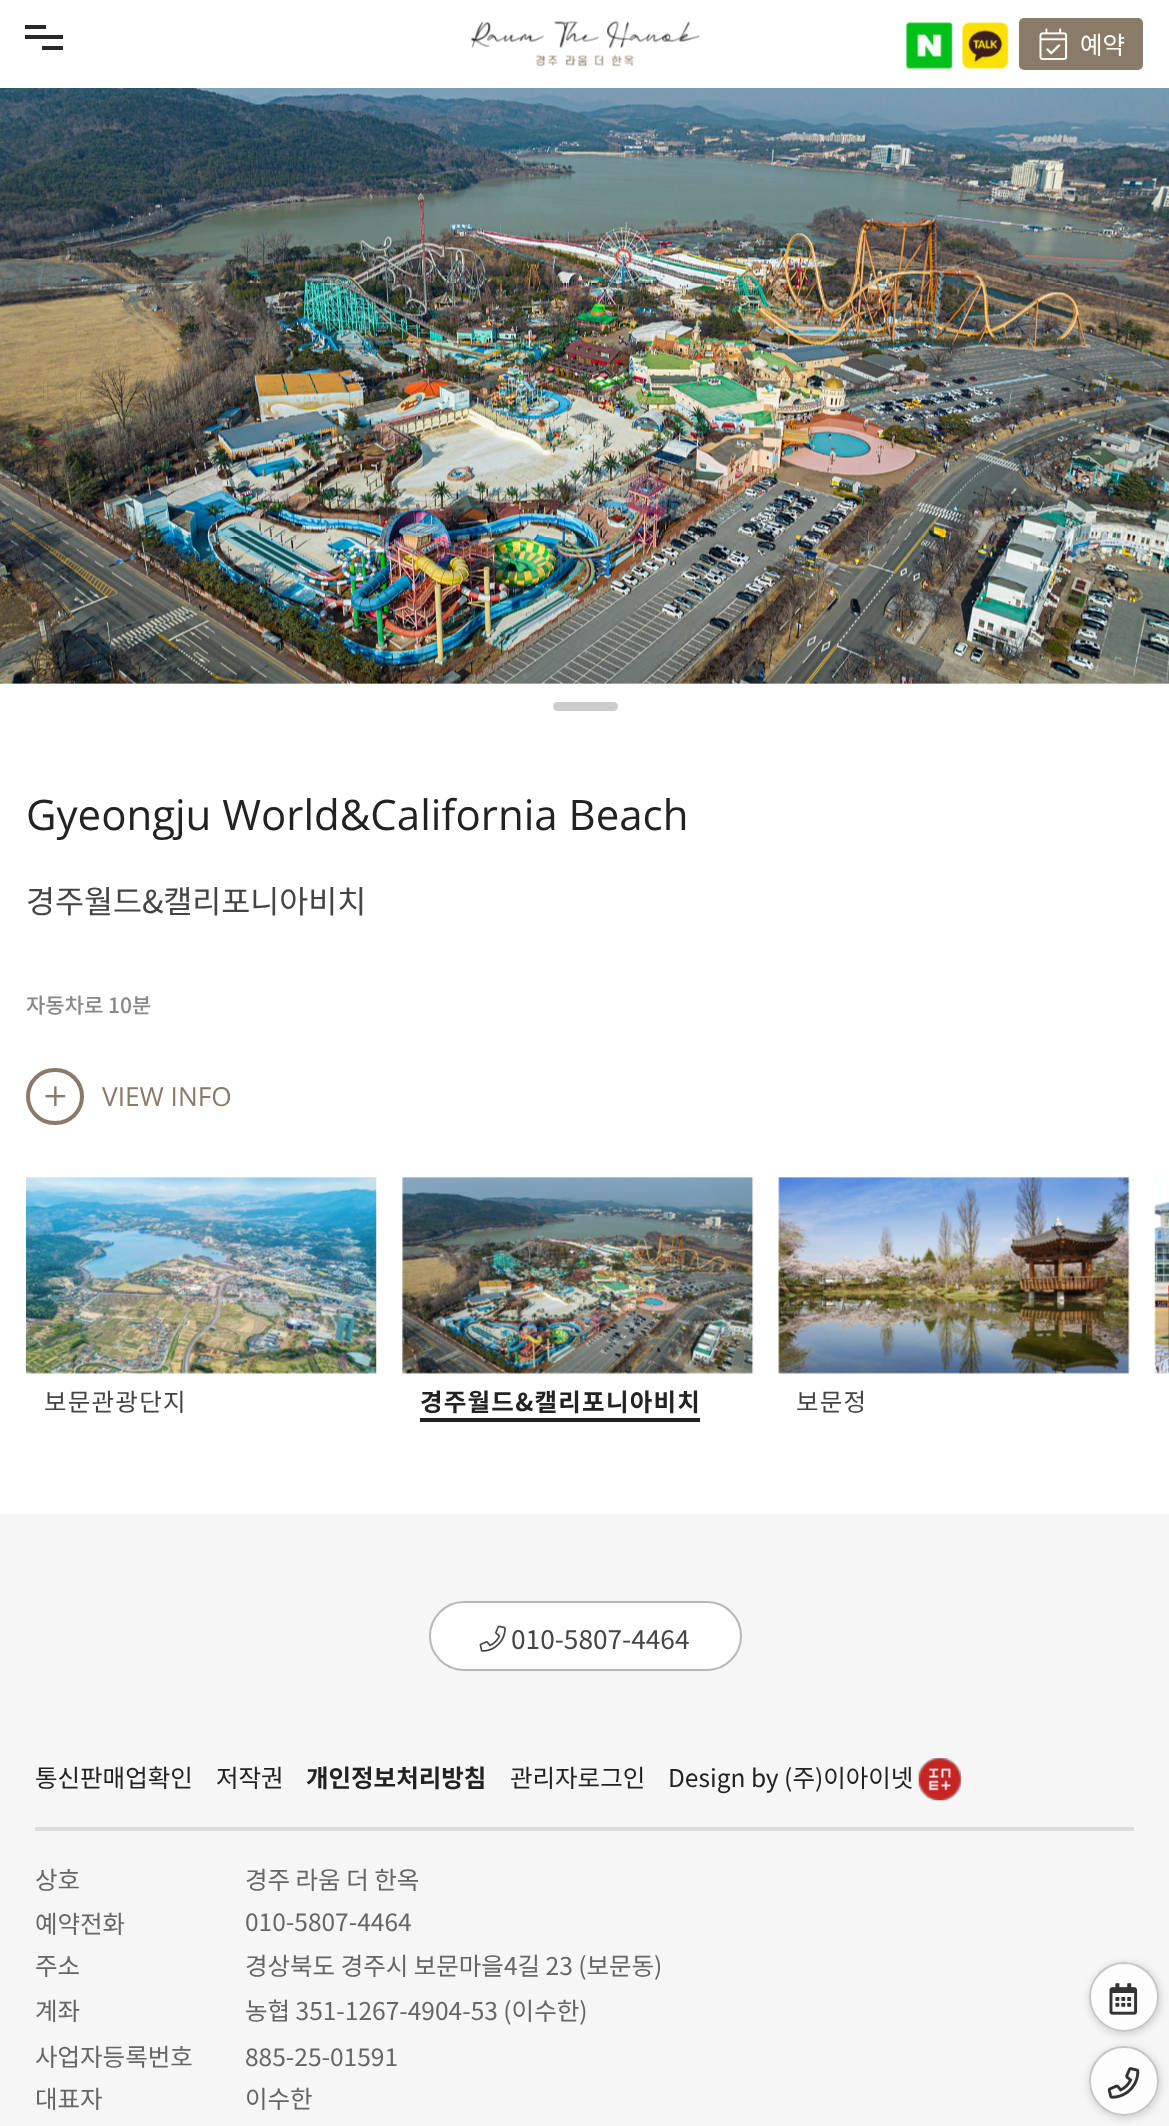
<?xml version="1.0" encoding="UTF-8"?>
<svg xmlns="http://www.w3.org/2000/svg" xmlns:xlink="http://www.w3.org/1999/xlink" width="1169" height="2126">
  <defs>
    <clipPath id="clip1"><path d="M 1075 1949 h 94 v 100 h -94 z m 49 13 c 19.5 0 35 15.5 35 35 c 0 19.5 -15.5 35 -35 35 c -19.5 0 -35 -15.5 -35 -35 c 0 -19.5 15.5 -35 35 -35 z" clip-rule="evenodd" /></clipPath>
    <clipPath id="clip2"><path d="M 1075 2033 h 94 v 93 h -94 z m 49 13 c 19.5 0 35 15.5 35 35 c 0 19.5 -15.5 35 -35 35 c -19.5 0 -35 -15.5 -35 -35 c 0 -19.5 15.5 -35 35 -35 z" clip-rule="evenodd" /></clipPath>
  </defs>
  <rect width="100%" height="100%" fill="#ffffff" />
  <rect x="25" y="25" width="21" height="4" fill="#282826" />
  <rect x="25" y="35" width="38" height="4" fill="#282826" />
  <rect x="42" y="46" width="21" height="4" fill="#282826" />
  <image x="471" y="21" width="229" height="46" xlink:href="image1.png" />
  <image x="906" y="22" width="47" height="47" xlink:href="image2.png" />
  <image x="962" y="22" width="47" height="47" xlink:href="image3.png" />
  <rect x="1019" y="18" width="124" height="52" rx="5" fill="#897b67" />
  <image x="1039" y="28" width="29" height="32" xlink:href="image4.png" />
  <image x="0" y="88" width="1169" height="596" xlink:href="image5.png" />
  <rect x="553" y="702" width="65" height="9" rx="4.5" fill="#cccccc" />
  <rect x="28" y="1070" width="54" height="53" rx="26.5" fill="none" stroke="#897b67" stroke-width="4" />
  <image x="45" y="1086" width="21" height="20" xlink:href="image6.png" />
  <image x="1154" y="1177" width="15" height="197" xlink:href="image7.png" />
  <image x="26" y="1177" width="351" height="197" xlink:href="image8.png" />
  <image x="402" y="1177" width="352" height="197" xlink:href="image9.png" />
  <rect x="420" y="1418" width="280" height="4" fill="#222222" />
  <image x="778" y="1177" width="352" height="197" xlink:href="image10.png" />
  <rect y="1514" width="1169" height="612" fill="#f6f6f6" />
  <rect x="430" y="1602" width="311" height="68" rx="34" fill="#ffffff" stroke="#b7b7b7" stroke-width="2" />
  <image x="479" y="1625" width="27" height="27" xlink:href="image11.png" />
  <rect x="35" y="1827" width="1099" height="4" fill="#dddddd" />
  <image x="918" y="1758" width="43" height="43" xlink:href="image12.png" />
  <g clip-path="url(#clip1)">
    <rect x="1090" y="1964" width="70" height="70" rx="35" fill="#242424" fill-opacity="0.2" filter="blur(4.5px)" />
  </g>
  <circle cx="1124" cy="1997" r="34" fill="#ffffff" fill-opacity="0.8" stroke="#c6c6c6" stroke-width="2" />
  <image x="1109" y="1983" width="29" height="32" xlink:href="image13.png" />
  <g clip-path="url(#clip2)">
    <rect x="1090" y="2048" width="70" height="70" rx="35" fill="#242424" fill-opacity="0.2" filter="blur(4.5px)" />
  </g>
  <circle cx="1124" cy="2081" r="34" fill="#ffffff" fill-opacity="0.8" stroke="#c6c6c6" stroke-width="2" />
  <image x="1107" y="2067" width="33" height="32" xlink:href="image14.png" />
  <text x="1080" y="54" style="font-family: Noto Sans KR; font-size: 24.5px; fill: #ffffff">예약</text>
  <text x="26" y="830" style="font-family: Open Sans; font-size: 42px; fill: #222222">Gyeongju World&amp;California Beach</text>
  <text x="26" y="913" style="font-family: Noto Sans KR; font-size: 31.5px; fill: #444444">경주월드&amp;캘리포니아비치</text>
  <text x="26" y="1013" style="font-family: Noto Sans KR; font-size: 21px; font-weight: 500; fill: #888888">자동차로 10분</text>
  <text x="102" y="1106" style="font-family: Open Sans; font-size: 26.25px; fill: #897b67">VIEW INFO</text>
  <text x="44" y="1411" style="font-family: Noto Sans KR; font-size: 24.5px; letter-spacing: 1.25px; fill: #444444">보문관광단지</text>
  <text x="420" y="1411" style="font-family: Noto Sans KR; font-size: 24.5px; font-weight: bold; letter-spacing: 1.25px; fill: #222222">경주월드&amp;캘리포니아비치</text>
  <text x="796" y="1411" style="font-family: Noto Sans KR; font-size: 24.5px; letter-spacing: 1.25px; fill: #444444">보문정</text>
  <text x="511" y="1649" style="font-family: Noto Sans KR; font-size: 26.25px; fill: #444444">010-5807-4464</text>
  <text x="35" y="1787" style="font-family: Noto Sans KR; font-size: 24.5px; fill: #222222">통신판매업확인</text>
  <text x="216" y="1787" style="font-family: Noto Sans KR; font-size: 24.5px; fill: #222222">저작권</text>
  <text x="306" y="1787" style="font-family: Noto Sans KR; font-size: 24.5px; font-weight: bold; fill: #222222">개인정보처리방침</text>
  <text x="510" y="1787" style="font-family: Noto Sans KR; font-size: 24.5px; fill: #222222">관리자로그인</text>
  <text x="668" y="1787" style="font-family: Noto Sans KR; font-size: 24.5px; fill: #222222">Design by (주)이아이넷</text>
  <text x="35" y="1889" style="font-family: Noto Sans KR; font-size: 24.5px; fill: #666666">상호</text>
  <text x="245" y="1889" style="font-family: Noto Sans KR; font-size: 24.5px; fill: #666666">경주 라움 더 한옥</text>
  <text x="35" y="1933" style="font-family: Noto Sans KR; font-size: 24.5px; fill: #666666">예약전화</text>
  <text x="245" y="1931" style="font-family: Noto Sans KR; font-size: 24.5px; fill: #666666">010-5807-4464</text>
  <text x="35" y="1975" style="font-family: Noto Sans KR; font-size: 24.5px; fill: #666666">주소</text>
  <text x="245" y="1975" style="font-family: Noto Sans KR; font-size: 24.5px; fill: #666666">경상북도 경주시 보문마을4길 23 (보문동)</text>
  <text x="35" y="2020" style="font-family: Noto Sans KR; font-size: 24.5px; fill: #666666">계좌</text>
  <text x="245" y="2020" style="font-family: Noto Sans KR; font-size: 24.5px; fill: #666666">농협 351-1267-4904-53 (이수한)</text>
  <text x="35" y="2066" style="font-family: Noto Sans KR; font-size: 24.5px; fill: #666666">사업자등록번호</text>
  <text x="245" y="2066" style="font-family: Noto Sans KR; font-size: 24.5px; fill: #666666">885-25-01591</text>
  <text x="35" y="2108" style="font-family: Noto Sans KR; font-size: 24.5px; fill: #666666">대표자</text>
  <text x="245" y="2108" style="font-family: Noto Sans KR; font-size: 24.5px; fill: #666666">이수한</text>
</svg>
